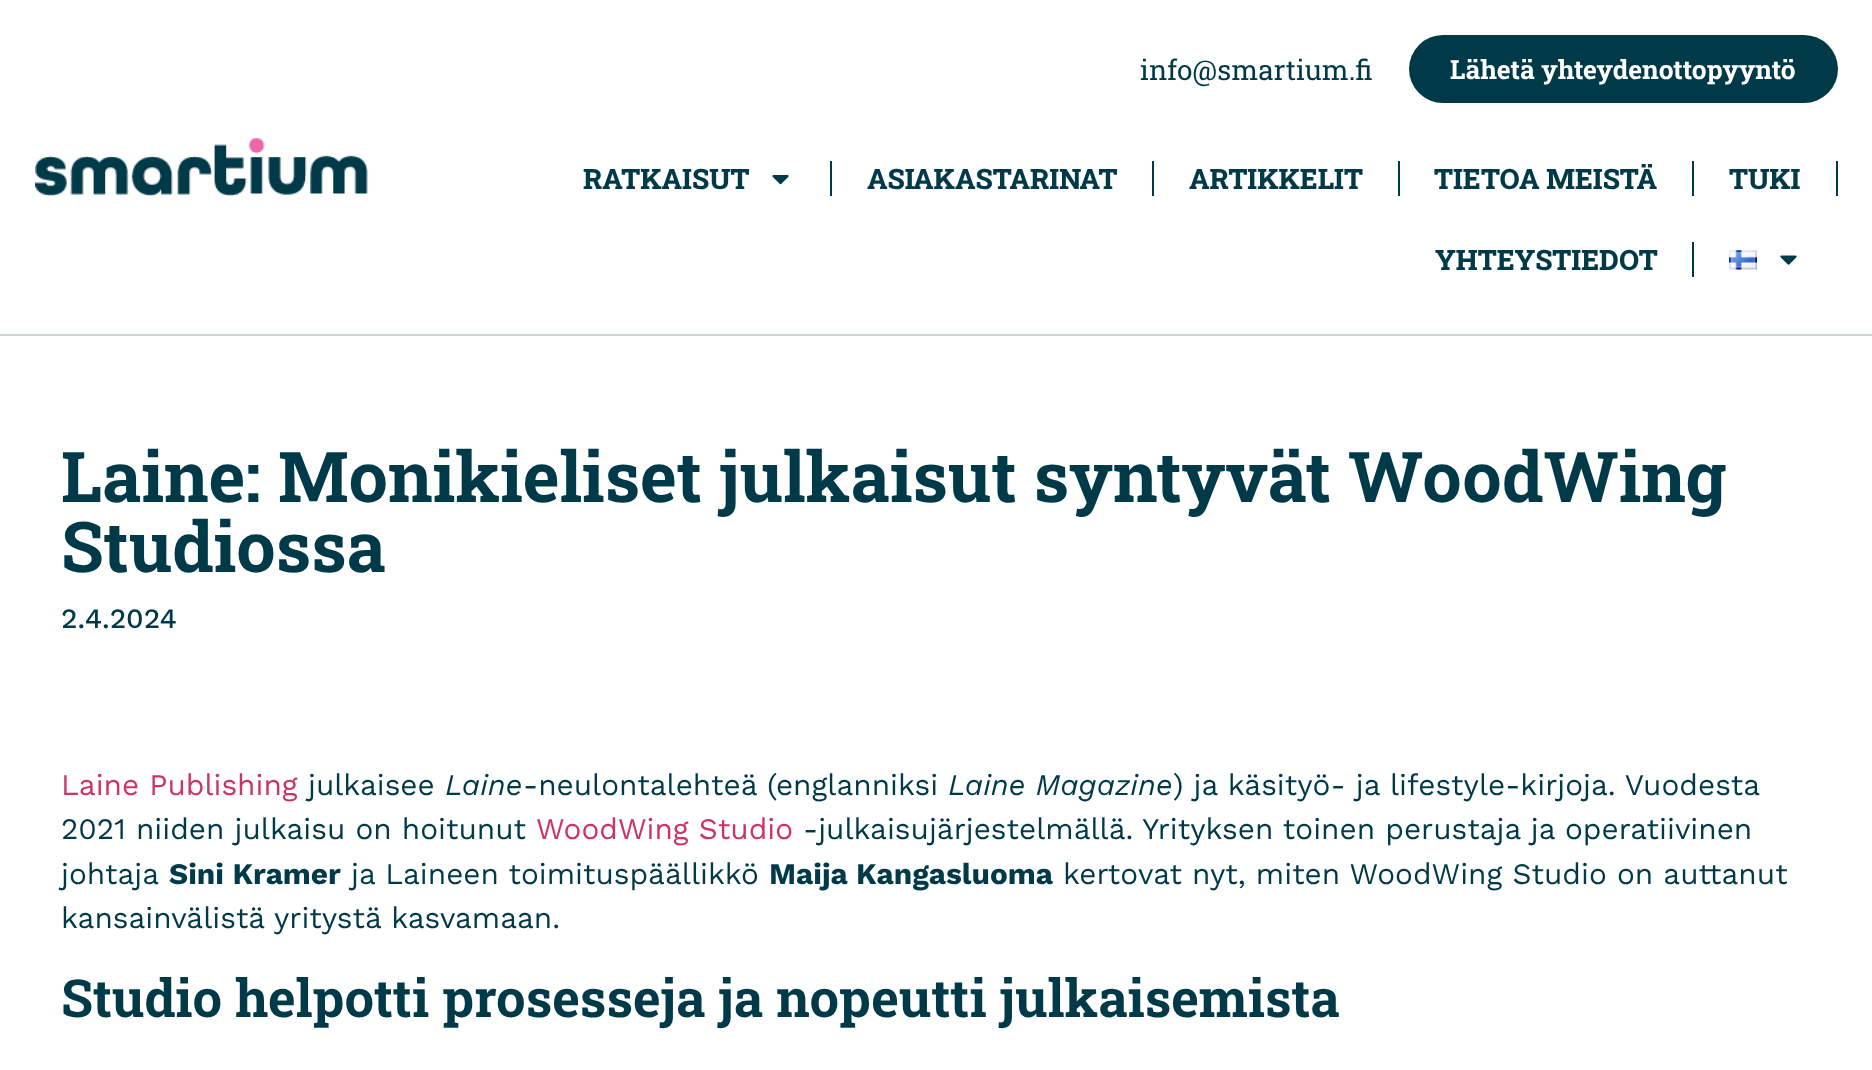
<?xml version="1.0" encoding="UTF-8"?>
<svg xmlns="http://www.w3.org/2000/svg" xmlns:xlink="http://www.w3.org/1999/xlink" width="1872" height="1070">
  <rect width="100%" height="100%" fill="#ffffff" />
  <rect y="334" width="1872" height="2" fill="#c7d4d7" />
  <image x="35" y="138" width="333" height="58" xlink:href="image1.png" />
  <rect x="1409" y="35" width="429" height="68" rx="34" fill="#003a49" />
  <image x="772" y="175" width="17" height="10" xlink:href="image2.png" />
  <rect x="830" y="161" width="2" height="35" fill="#003a49" />
  <rect x="1152" y="161" width="2" height="35" fill="#003a49" />
  <rect x="1398" y="161" width="2" height="35" fill="#003a49" />
  <rect x="1692" y="161" width="2" height="35" fill="#003a49" />
  <rect x="1836" y="161" width="2" height="35" fill="#003a49" />
  <rect x="1692" y="242" width="2" height="35" fill="#003a49" />
  <image x="1729" y="250" width="28" height="20" xlink:href="image3.png" />
  <image x="1780" y="255" width="17" height="10" xlink:href="image4.png" />
  <text x="1140" y="80" style="font-family: Roboto Slab; font-size: 28px; fill: #003a49">info@smartium.fi</text>
  <text x="1450" y="79" style="font-family: Roboto Slab; font-size: 26.25px; font-weight: bold; fill: #ffffff">Lähetä yhteydenottopyyntö</text>
  <text x="583" y="189" style="font-family: Roboto Slab; font-size: 28px; font-weight: 800; fill: #003a49">RATKAISUT</text>
  <text x="867" y="189" style="font-family: Roboto Slab; font-size: 28px; font-weight: 800; fill: #003a49">ASIAKASTARINAT</text>
  <text x="1189" y="189" style="font-family: Roboto Slab; font-size: 28px; font-weight: 800; fill: #003a49">ARTIKKELIT</text>
  <text x="1434" y="189" style="font-family: Roboto Slab; font-size: 28px; font-weight: 800; fill: #003a49">TIETOA MEISTÄ</text>
  <text x="1729" y="189" style="font-family: Roboto Slab; font-size: 28px; font-weight: 800; fill: #003a49">TUKI</text>
  <text x="1435" y="270" style="font-family: Roboto Slab; font-size: 28px; font-weight: 800; fill: #003a49">YHTEYSTIEDOT</text>
  <text x="61" y="502" style="font-family: Roboto Slab; font-size: 70px; font-weight: bold; fill: #003a49">Laine: Monikieliset julkaisut syntyvät WoodWing</text>
  <text x="61" y="572" style="font-family: Roboto Slab; font-size: 70px; font-weight: bold; fill: #003a49">Studiossa</text>
  <text x="61" y="628" style="font-family: Work Sans; font-size: 28px; font-weight: 500; fill: #003a49">2.4.2024</text>
  <text x="61" y="795" style="font-family: Work Sans; font-size: 29.75px; fill: #cc3366">Laine Publishing</text>
  <text x="308" y="795" style="font-family: Work Sans; font-size: 29.75px; fill: #003a49">julkaisee</text>
  <text x="445" y="795" style="font-family: Work Sans; font-size: 29.75px; font-style: italic; fill: #003a49">Laine</text>
  <text x="523" y="795" style="font-family: Work Sans; font-size: 29.75px; fill: #003a49">-neulontalehteä (englanniksi</text>
  <text x="948" y="795" style="font-family: Work Sans; font-size: 29.75px; font-style: italic; fill: #003a49">Laine Magazine</text>
  <text x="1173" y="795" style="font-family: Work Sans; font-size: 29.75px; fill: #003a49">) ja käsityö- ja lifestyle-kirjoja. Vuodesta</text>
  <text x="61" y="839" style="font-family: Work Sans; font-size: 29.75px; fill: #003a49">2021 niiden julkaisu on hoitunut</text>
  <text x="536" y="839" style="font-family: Work Sans; font-size: 29.75px; fill: #cc3366">WoodWing Studio</text>
  <text x="803" y="839" style="font-family: Work Sans; font-size: 29.75px; fill: #003a49">-julkaisujärjestelmällä. Yrityksen toinen perustaja ja operatiivinen</text>
  <text x="61" y="884" style="font-family: Work Sans; font-size: 29.75px; fill: #003a49">johtaja</text>
  <text x="169" y="884" style="font-family: Work Sans; font-size: 29.75px; font-weight: bold; fill: #003a49">Sini Kramer</text>
  <text x="351" y="884" style="font-family: Work Sans; font-size: 29.75px; fill: #003a49">ja Laineen toimituspäällikkö</text>
  <text x="769" y="884" style="font-family: Work Sans; font-size: 29.75px; font-weight: bold; fill: #003a49">Maija Kangasluoma</text>
  <text x="1063" y="884" style="font-family: Work Sans; font-size: 29.75px; fill: #003a49">kertovat nyt, miten WoodWing Studio on auttanut</text>
  <text x="61" y="928" style="font-family: Work Sans; font-size: 29.75px; fill: #003a49">kansainvälistä yritystä kasvamaan.</text>
  <text x="61" y="1017" style="font-family: Roboto Slab; font-size: 52.5px; font-weight: bold; fill: #003a49">Studio helpotti prosesseja ja nopeutti julkaisemista</text>
</svg>
